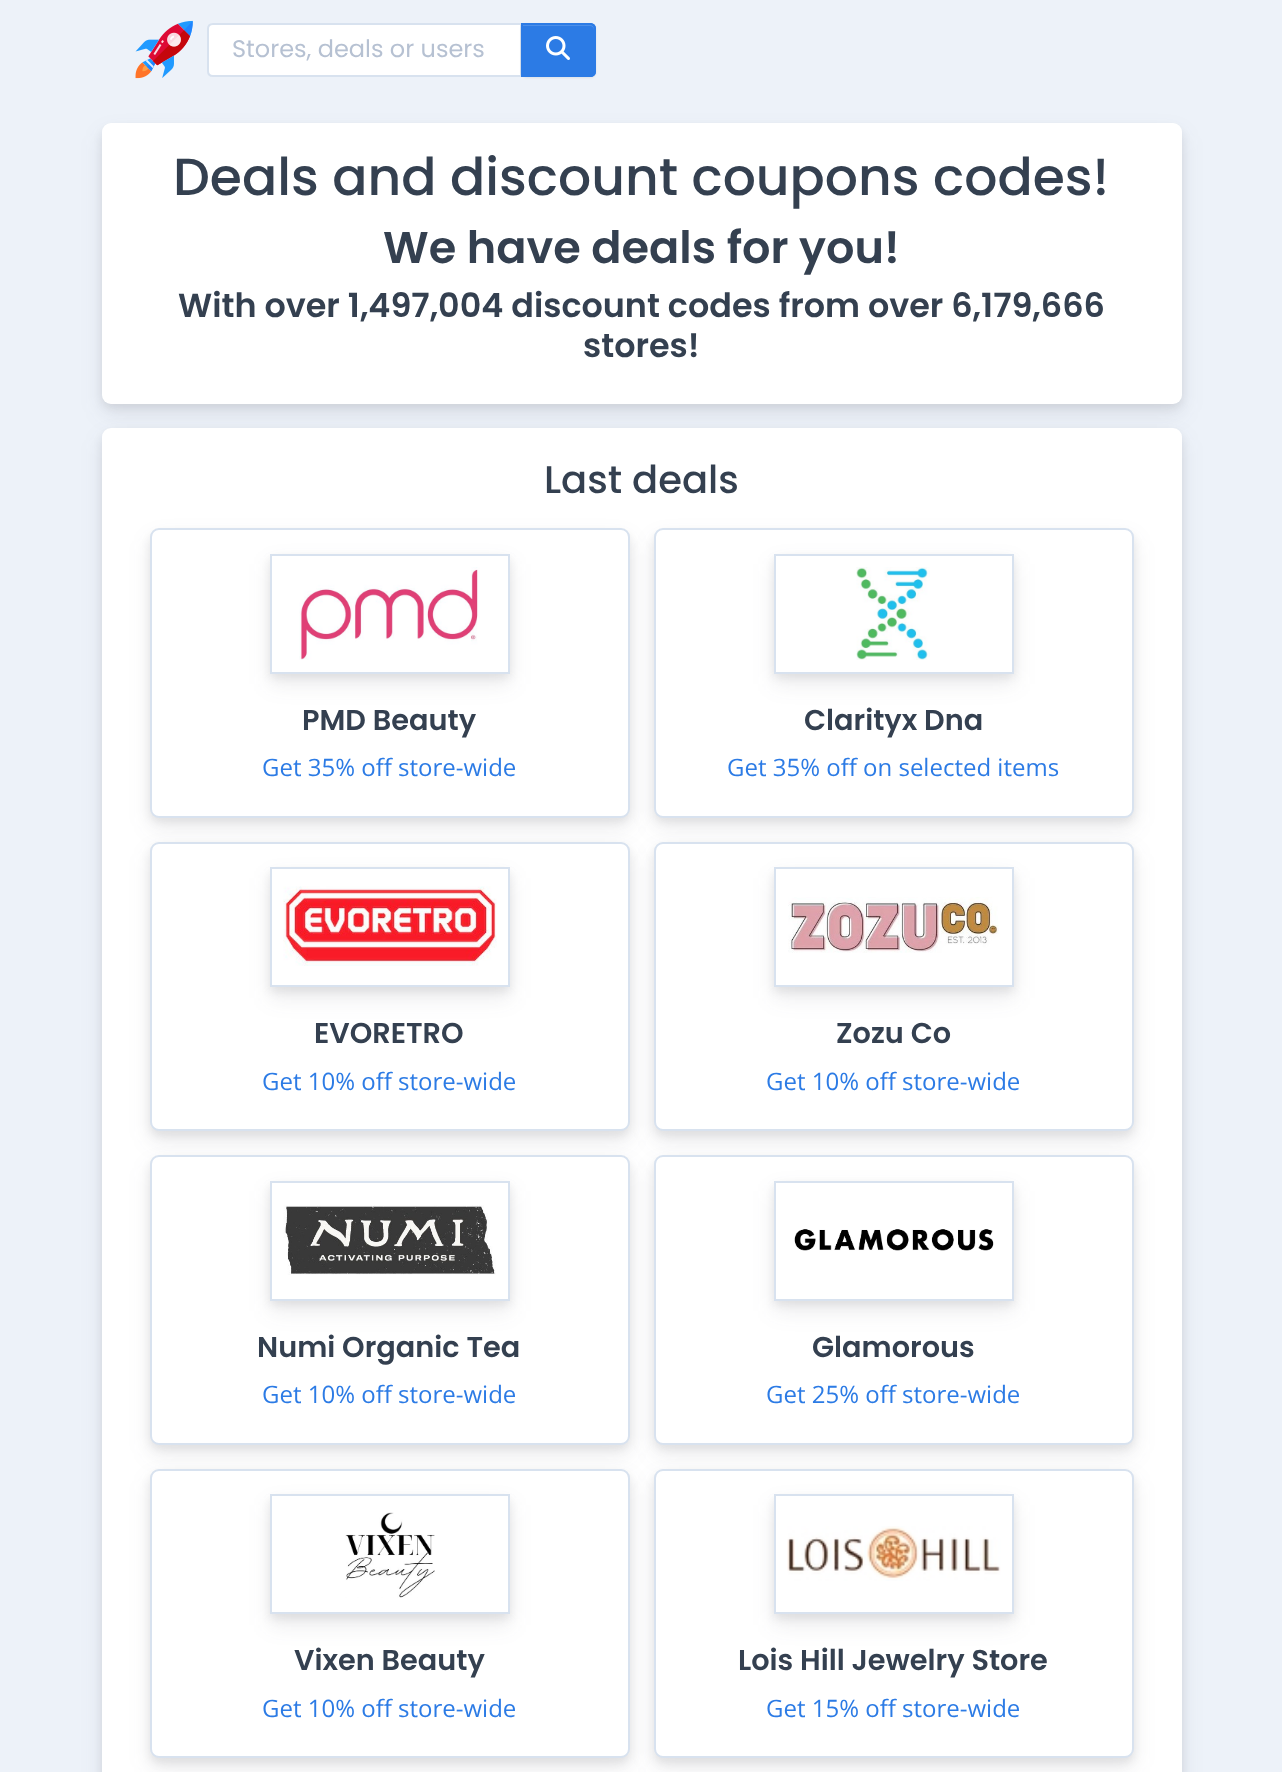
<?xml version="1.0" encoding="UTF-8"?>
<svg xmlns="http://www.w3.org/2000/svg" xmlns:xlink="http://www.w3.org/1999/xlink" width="1282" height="1772">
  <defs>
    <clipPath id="clip1"><path d="M 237 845 h 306 v 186 h -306 z m 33 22 h 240 v 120 h -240 z" clip-rule="evenodd" /></clipPath>
    <clipPath id="clip2"><path d="M 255 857 h 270 v 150 h -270 z m 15 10 h 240 v 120 h -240 z" clip-rule="evenodd" /></clipPath>
    <clipPath id="clip3"><path d="M 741 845 h 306 v 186 h -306 z m 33 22 h 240 v 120 h -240 z" clip-rule="evenodd" /></clipPath>
    <clipPath id="clip4"><path d="M 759 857 h 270 v 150 h -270 z m 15 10 h 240 v 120 h -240 z" clip-rule="evenodd" /></clipPath>
    <clipPath id="clip5"><path d="M 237 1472 h 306 v 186 h -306 z m 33 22 h 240 v 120 h -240 z" clip-rule="evenodd" /></clipPath>
    <clipPath id="clip6"><path d="M 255 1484 h 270 v 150 h -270 z m 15 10 h 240 v 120 h -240 z" clip-rule="evenodd" /></clipPath>
    <clipPath id="clip7"><path d="M 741 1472 h 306 v 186 h -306 z m 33 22 h 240 v 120 h -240 z" clip-rule="evenodd" /></clipPath>
    <clipPath id="clip8"><path d="M 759 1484 h 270 v 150 h -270 z m 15 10 h 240 v 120 h -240 z" clip-rule="evenodd" /></clipPath>
  </defs>
  <rect width="100%" height="100%" fill="#edf2f9" />
  <image x="135" y="20" width="58" height="59" xlink:href="image1.png" />
  <path d="M 213 24 h 308 v 52 h -308 c -3 0 -5 -2 -5 -5 v -42 c 0 -3 2 -5 5 -5 z" fill="#ffffff" stroke="#d8e2ef" stroke-width="2" />
  <rect x="521" y="24" width="75" height="54" rx="6" fill="#000000" fill-opacity="0.07" filter="blur(1px)" />
  <path d="M 521 23 h 69 c 3.5 0 6 2.5 6 6 v 42 c 0 3.5 -2.5 6 -6 6 h -69 z" fill="#2c7be5" />
  <path d="M 522 26 h 68 c 2 0 4 2 4 4 v -1 c 0 -3 -2 -5 -5 -5 h -67 z" fill="#4c8fe9" />
  <path d="M 522 24 h 68 c 3 0 5 2 5 5 v 42 c 0 3 -2 5 -5 5 h -68 z" fill="none" stroke="#2c7be5" stroke-width="2" />
  <image x="546" y="36" width="24" height="24" xlink:href="image2.png" />
  <rect x="102" y="128" width="1080" height="280" rx="9" fill="#000000" fill-opacity="0.07" filter="blur(4.5px)" />
  <rect x="102" y="134" width="1080" height="280" rx="9" fill="#414558" fill-opacity="0.1" filter="blur(10.5px)" />
  <rect x="102" y="123" width="1080" height="281" rx="9" fill="#ffffff" />
  <rect x="102" y="432" width="1080" height="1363" rx="9" fill="#000000" fill-opacity="0.07" filter="blur(4.5px)" />
  <rect x="102" y="438" width="1080" height="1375" rx="9" fill="#414558" fill-opacity="0.1" filter="blur(10.5px)" />
  <rect x="102" y="428" width="1080" height="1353" rx="9" fill="#ffffff" />
  <rect x="150" y="533" width="480" height="289" rx="9" fill="#000000" fill-opacity="0.07" filter="blur(4.5px)" />
  <rect x="150" y="539" width="480" height="289" rx="9" fill="#414558" fill-opacity="0.1" filter="blur(10.5px)" />
  <rect x="151" y="529" width="478" height="288" rx="8" fill="#ffffff" stroke="#d8e2ef" stroke-width="2" />
  <rect x="270" y="564" width="240" height="120" fill="#414558" fill-opacity="0.1" filter="blur(10.5px)" />
  <rect x="270" y="558" width="240" height="120" fill="#000000" fill-opacity="0.07" filter="blur(4.5px)" />
  <rect x="271" y="555" width="238" height="118" fill="#ffffff" stroke="#d8e2ef" stroke-width="2" />
  <image x="299" y="567" width="181" height="93" xlink:href="image3.png" />
  <rect x="654" y="533" width="480" height="289" rx="9" fill="#000000" fill-opacity="0.07" filter="blur(4.5px)" />
  <rect x="654" y="539" width="480" height="289" rx="9" fill="#414558" fill-opacity="0.1" filter="blur(10.5px)" />
  <rect x="655" y="529" width="478" height="288" rx="8" fill="#ffffff" stroke="#d8e2ef" stroke-width="2" />
  <rect x="774" y="564" width="240" height="120" fill="#414558" fill-opacity="0.1" filter="blur(10.5px)" />
  <rect x="774" y="558" width="240" height="120" fill="#000000" fill-opacity="0.07" filter="blur(4.5px)" />
  <rect x="775" y="555" width="238" height="118" fill="#ffffff" stroke="#d8e2ef" stroke-width="2" />
  <image x="856" y="567" width="74" height="93" xlink:href="image4.png" />
  <rect x="150" y="846" width="480" height="290" rx="9" fill="#000000" fill-opacity="0.07" filter="blur(4.5px)" />
  <rect x="150" y="852" width="480" height="290" rx="9" fill="#414558" fill-opacity="0.1" filter="blur(10.5px)" />
  <rect x="151" y="843" width="478" height="287" rx="8" fill="#ffffff" stroke="#d8e2ef" stroke-width="2" />
  <g clip-path="url(#clip1)">
    <rect x="270" y="878" width="240" height="120" fill="#414558" fill-opacity="0.1" filter="blur(10.5px)" />
  </g>
  <g clip-path="url(#clip2)">
    <rect x="270" y="872" width="240" height="120" fill="#000000" fill-opacity="0.07" filter="blur(4.5px)" />
  </g>
  <rect x="271" y="868" width="238" height="118" fill="none" stroke="#d8e2ef" stroke-width="2" />
  <image x="283" y="886" width="214" height="80" xlink:href="image5.png" />
  <rect x="654" y="846" width="480" height="290" rx="9" fill="#000000" fill-opacity="0.07" filter="blur(4.5px)" />
  <rect x="654" y="852" width="480" height="290" rx="9" fill="#414558" fill-opacity="0.1" filter="blur(10.5px)" />
  <rect x="655" y="843" width="478" height="287" rx="8" fill="#ffffff" stroke="#d8e2ef" stroke-width="2" />
  <g clip-path="url(#clip3)">
    <rect x="774" y="878" width="240" height="120" fill="#414558" fill-opacity="0.1" filter="blur(10.5px)" />
  </g>
  <g clip-path="url(#clip4)">
    <rect x="774" y="872" width="240" height="120" fill="#000000" fill-opacity="0.07" filter="blur(4.5px)" />
  </g>
  <rect x="775" y="868" width="238" height="118" fill="none" stroke="#d8e2ef" stroke-width="2" />
  <image x="788" y="897" width="211" height="56" xlink:href="image6.png" />
  <rect x="150" y="1160" width="480" height="289" rx="9" fill="#000000" fill-opacity="0.07" filter="blur(4.5px)" />
  <rect x="150" y="1166" width="480" height="289" rx="9" fill="#414558" fill-opacity="0.1" filter="blur(10.5px)" />
  <rect x="151" y="1156" width="478" height="288" rx="8" fill="#ffffff" stroke="#d8e2ef" stroke-width="2" />
  <rect x="270" y="1191" width="240" height="120" fill="#414558" fill-opacity="0.1" filter="blur(10.5px)" />
  <rect x="270" y="1185" width="240" height="120" fill="#000000" fill-opacity="0.07" filter="blur(4.5px)" />
  <rect x="271" y="1182" width="238" height="118" fill="#ffffff" stroke="#d8e2ef" stroke-width="2" />
  <image x="283" y="1205" width="213" height="70" xlink:href="image7.png" />
  <rect x="654" y="1160" width="480" height="289" rx="9" fill="#000000" fill-opacity="0.07" filter="blur(4.5px)" />
  <rect x="654" y="1166" width="480" height="289" rx="9" fill="#414558" fill-opacity="0.1" filter="blur(10.5px)" />
  <rect x="655" y="1156" width="478" height="288" rx="8" fill="#ffffff" stroke="#d8e2ef" stroke-width="2" />
  <rect x="774" y="1191" width="240" height="120" fill="#414558" fill-opacity="0.1" filter="blur(10.5px)" />
  <rect x="774" y="1185" width="240" height="120" fill="#000000" fill-opacity="0.07" filter="blur(4.5px)" />
  <rect x="775" y="1182" width="238" height="118" fill="#ffffff" stroke="#d8e2ef" stroke-width="2" />
  <image x="794" y="1229" width="200" height="22" xlink:href="image8.png" />
  <rect x="150" y="1473" width="480" height="290" rx="9" fill="#000000" fill-opacity="0.07" filter="blur(4.5px)" />
  <rect x="150" y="1479" width="480" height="290" rx="9" fill="#414558" fill-opacity="0.1" filter="blur(10.5px)" />
  <rect x="151" y="1470" width="478" height="287" rx="8" fill="#ffffff" stroke="#d8e2ef" stroke-width="2" />
  <g clip-path="url(#clip5)">
    <rect x="270" y="1505" width="240" height="120" fill="#414558" fill-opacity="0.1" filter="blur(10.5px)" />
  </g>
  <g clip-path="url(#clip6)">
    <rect x="270" y="1499" width="240" height="120" fill="#000000" fill-opacity="0.07" filter="blur(4.5px)" />
  </g>
  <rect x="271" y="1495" width="238" height="118" fill="none" stroke="#d8e2ef" stroke-width="2" />
  <image x="345" y="1512" width="90" height="86" xlink:href="image9.png" />
  <rect x="654" y="1473" width="480" height="290" rx="9" fill="#000000" fill-opacity="0.07" filter="blur(4.5px)" />
  <rect x="654" y="1479" width="480" height="290" rx="9" fill="#414558" fill-opacity="0.1" filter="blur(10.5px)" />
  <rect x="655" y="1470" width="478" height="287" rx="8" fill="#ffffff" stroke="#d8e2ef" stroke-width="2" />
  <g clip-path="url(#clip7)">
    <rect x="774" y="1505" width="240" height="120" fill="#414558" fill-opacity="0.1" filter="blur(10.5px)" />
  </g>
  <g clip-path="url(#clip8)">
    <rect x="774" y="1499" width="240" height="120" fill="#000000" fill-opacity="0.07" filter="blur(4.5px)" />
  </g>
  <rect x="775" y="1495" width="238" height="118" fill="none" stroke="#d8e2ef" stroke-width="2" />
  <image x="787" y="1526" width="214" height="55" xlink:href="image10.png" />
  <text x="232" y="57" style="font-family: Poppins; font-size: 24px; fill: #b6c1d2">Stores, deals or users</text>
  <text x="173" y="195" style="font-family: Poppins; font-size: 52px; font-weight: 500; fill: #344050">Deals and discount coupons codes!</text>
  <text x="383" y="263" style="font-family: Poppins; font-size: 44.6px; font-weight: 600; fill: #344050">We have deals for you!</text>
  <text x="178" y="317" style="font-family: Poppins; font-size: 33.4px; font-weight: 600; fill: #344050">With over 1,497,004 discount codes from over 6,179,666</text>
  <text x="583" y="357" style="font-family: Poppins; font-size: 33.4px; font-weight: 600; fill: #344050">stores!</text>
  <text x="544" y="493" style="font-family: Poppins; font-size: 38.5px; font-weight: 500; fill: #344050">Last deals</text>
  <text x="302" y="730" style="font-family: Poppins; font-size: 28.75px; font-weight: 600; fill: #344050">PMD Beauty</text>
  <text x="262" y="776" style="font-family: Open Sans; font-size: 24px; fill: #2c7be5">Get 35% off store-wide</text>
  <text x="804" y="730" style="font-family: Poppins; font-size: 28.75px; font-weight: 600; fill: #344050">Clarityx Dna</text>
  <text x="727" y="776" style="font-family: Open Sans; font-size: 24px; fill: #2c7be5">Get 35% off on selected items</text>
  <text x="314" y="1043" style="font-family: Poppins; font-size: 28.75px; font-weight: 600; fill: #344050">EVORETRO</text>
  <text x="262" y="1090" style="font-family: Open Sans; font-size: 24px; fill: #2c7be5">Get 10% off store-wide</text>
  <text x="836" y="1043" style="font-family: Poppins; font-size: 28.75px; font-weight: 600; fill: #344050">Zozu Co</text>
  <text x="766" y="1090" style="font-family: Open Sans; font-size: 24px; fill: #2c7be5">Get 10% off store-wide</text>
  <text x="257" y="1357" style="font-family: Poppins; font-size: 28.75px; font-weight: 600; fill: #344050">Numi Organic Tea</text>
  <text x="262" y="1403" style="font-family: Open Sans; font-size: 24px; fill: #2c7be5">Get 10% off store-wide</text>
  <text x="812" y="1357" style="font-family: Poppins; font-size: 28.75px; font-weight: 600; fill: #344050">Glamorous</text>
  <text x="766" y="1403" style="font-family: Open Sans; font-size: 24px; fill: #2c7be5">Get 25% off store-wide</text>
  <text x="294" y="1670" style="font-family: Poppins; font-size: 28.75px; font-weight: 600; fill: #344050">Vixen Beauty</text>
  <text x="262" y="1717" style="font-family: Open Sans; font-size: 24px; fill: #2c7be5">Get 10% off store-wide</text>
  <text x="738" y="1670" style="font-family: Poppins; font-size: 28.75px; font-weight: 600; fill: #344050">Lois Hill Jewelry Store</text>
  <text x="766" y="1717" style="font-family: Open Sans; font-size: 24px; fill: #2c7be5">Get 15% off store-wide</text>
</svg>
